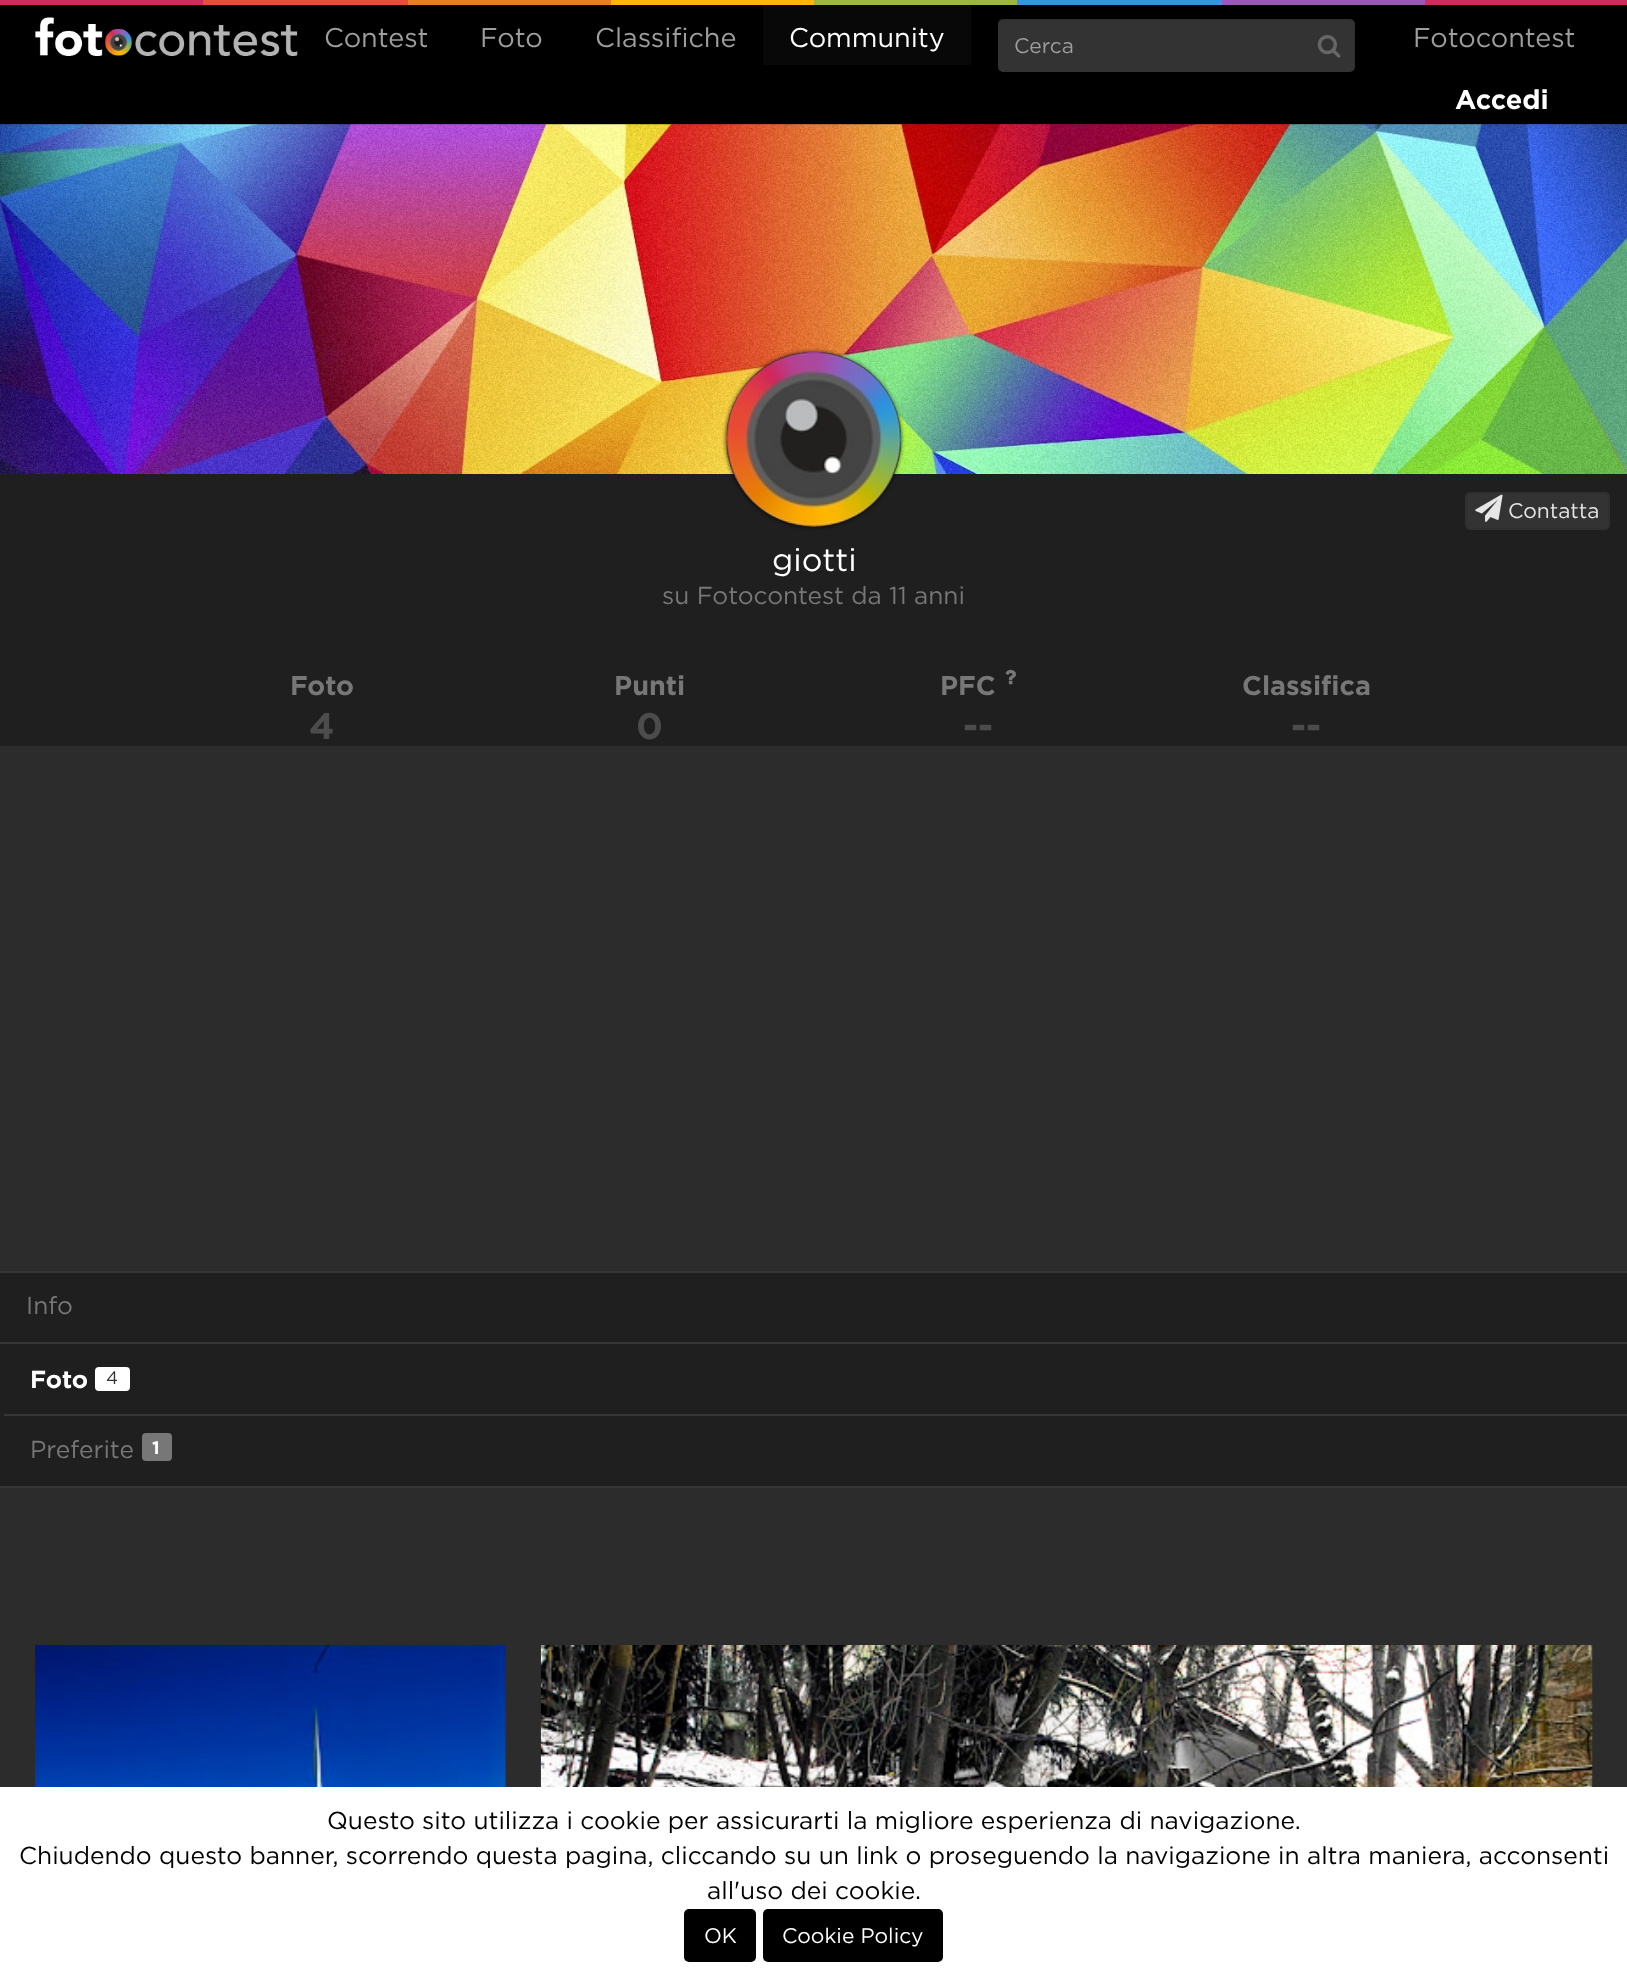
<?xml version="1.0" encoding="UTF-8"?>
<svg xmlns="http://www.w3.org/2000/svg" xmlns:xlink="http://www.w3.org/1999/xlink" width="1627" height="1978">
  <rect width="100%" height="100%" fill="#2c2c2c" />
  <rect y="5" width="1627" height="119" fill="#000000" />
  <rect width="203" height="5" fill="#d12b5d" />
  <rect x="203" width="205" height="5" fill="#e74c3c" />
  <rect x="408" width="203" height="5" fill="#e67e22" />
  <rect x="611" width="203" height="5" fill="#ffb606" />
  <rect x="814" width="203" height="5" fill="#9cb641" />
  <rect x="1017" width="205" height="5" fill="#3498db" />
  <rect x="1222" width="203" height="5" fill="#9b59b6" />
  <rect x="1425" width="202" height="5" fill="#d12b5d" />
  <image x="35" y="17" width="263" height="39" xlink:href="image1.png" />
  <rect x="763" y="5" width="208" height="60" fill="#080808" />
  <rect x="998" y="19" width="357" height="53" rx="5" fill="#333333" />
  <path d="M 1003 21 h 346 c 3 0 5 2 5 5 v 42 v 3 c 0 -1 1 -3 1 -4 v -43 c 0 -3 -2 -5 -5 -5 h -347 c -3 0 -5 2 -5 5 v 2 c 0 -3 2 -5 5 -5 z" fill="#000000" fill-opacity="0.07" />
  <image x="1317" y="35" width="24" height="23" xlink:href="image2.png" />
  <image x="0" y="124" width="1627" height="350" xlink:href="image3.png" />
  <rect y="474" width="1627" height="272" fill="#1f1f1f" />
  <rect x="1466" y="493" width="143" height="36" rx="4" fill="#333333" stroke="#303030" stroke-width="2" />
  <image x="1475" y="494" width="28" height="28" xlink:href="image4.png" />
  <rect x="726" y="352" width="175" height="175" rx="87.5" fill="#000000" fill-opacity="0.8" filter="blur(2px)" />
  <image x="726" y="351" width="176" height="176" xlink:href="image5.png" />
  <image x="1005" y="669" width="11" height="16" xlink:href="image6.png" />
  <rect y="1273" width="1627" height="213" fill="#1f1f1f" />
  <rect y="1271" width="1627" height="2" fill="#353535" />
  <rect y="1486" width="1627" height="2" fill="#353535" />
  <rect y="1342" width="1627" height="2" fill="#353535" />
  <rect x="4" y="1414" width="1623" height="2" fill="#353535" />
  <rect x="95" y="1367" width="35" height="24" rx="4" fill="#ffffff" />
  <rect x="142" y="1433" width="30" height="28" rx="4" fill="#777777" />
  <image x="35" y="1645" width="471" height="142" xlink:href="image7.png" />
  <image x="540" y="1645" width="1053" height="142" xlink:href="image8.png" />
  <rect y="1787" width="1627" height="191" fill="#ffffff" />
  <rect x="684" y="1909" width="72" height="53" rx="5" fill="#000000" />
  <rect x="763" y="1909" width="180" height="53" rx="5" fill="#000000" />
  <text x="324" y="47" style="font-family: Gotham; font-size: 27px; fill: #9d9d9d">Contest</text>
  <text x="480" y="47" style="font-family: Gotham; font-size: 27px; fill: #9d9d9d">Foto</text>
  <text x="595" y="47" style="font-family: Gotham; font-size: 27px; fill: #9d9d9d">Classifiche</text>
  <text x="789" y="47" style="font-family: Gotham; font-size: 27px; fill: #ffffff">Community</text>
  <text x="1014" y="53" style="font-family: Gotham; font-size: 21px; fill: #9d9d9d">Cerca</text>
  <text x="1413" y="47" style="font-family: Gotham; font-size: 27px; fill: #9d9d9d">Fotocontest</text>
  <text x="1455" y="109" style="font-family: Gotham; font-size: 27px; font-weight: bold; fill: #ffffff">Accedi</text>
  <text x="1508" y="518" style="font-family: Gotham; font-size: 21px; fill: #e6e6e6">Contatta</text>
  <text x="772" y="571" style="font-family: Gotham; font-size: 32px; fill: #ffffff">giotti</text>
  <text x="662" y="604" style="font-family: Gotham; font-size: 24.5px; fill: #777777">su Fotocontest da 11 anni</text>
  <text x="290" y="695" style="font-family: Gotham; font-size: 27px; font-weight: bold; fill: #777777">Foto</text>
  <text x="309" y="739" style="font-family: Gotham; font-size: 37px; font-weight: bold; fill: #4c4c4c">4</text>
  <text x="614" y="695" style="font-family: Gotham; font-size: 27px; font-weight: bold; fill: #777777">Punti</text>
  <text x="636" y="739" style="font-family: Gotham; font-size: 37px; font-weight: bold; fill: #4c4c4c">0</text>
  <text x="940" y="695" style="font-family: Gotham; font-size: 27px; font-weight: bold; fill: #777777">PFC</text>
  <text x="963" y="739" style="font-family: Gotham; font-size: 37px; font-weight: bold; fill: #4c4c4c">--</text>
  <text x="1242" y="695" style="font-family: Gotham; font-size: 27px; font-weight: bold; fill: #777777">Classifica</text>
  <text x="1291" y="739" style="font-family: Gotham; font-size: 37px; font-weight: bold; fill: #4c4c4c">--</text>
  <text x="26" y="1314" style="font-family: Gotham; font-size: 24.5px; fill: #777777">Info</text>
  <text x="30" y="1388" style="font-family: Gotham; font-size: 24.5px; font-weight: bold; fill: #ffffff">Foto</text>
  <text x="106" y="1384" style="font-family: Gotham; font-size: 18px; fill: #333333">4</text>
  <text x="30" y="1458" style="font-family: Gotham; font-size: 24.5px; fill: #777777">Preferite</text>
  <text x="152" y="1454" style="font-family: Gotham; font-size: 18px; font-weight: bold; fill: #ffffff">1</text>
  <text x="327" y="1829" style="font-family: Gotham; font-size: 24.5px; fill: #000000">Questo sito utilizza i cookie per assicurarti la migliore esperienza di navigazione.</text>
  <text x="19" y="1864" style="font-family: Gotham; font-size: 24.5px; fill: #000000">Chiudendo questo banner, scorrendo questa pagina, cliccando su un link o proseguendo la navigazione in altra maniera, acconsenti</text>
  <text x="707" y="1899" style="font-family: Gotham; font-size: 24.5px; fill: #000000">all'uso dei cookie.</text>
  <text x="704" y="1943" style="font-family: Gotham; font-size: 21px; fill: #ffffff">OK</text>
  <text x="782" y="1943" style="font-family: Gotham; font-size: 21px; fill: #ffffff">Cookie Policy</text>
</svg>
